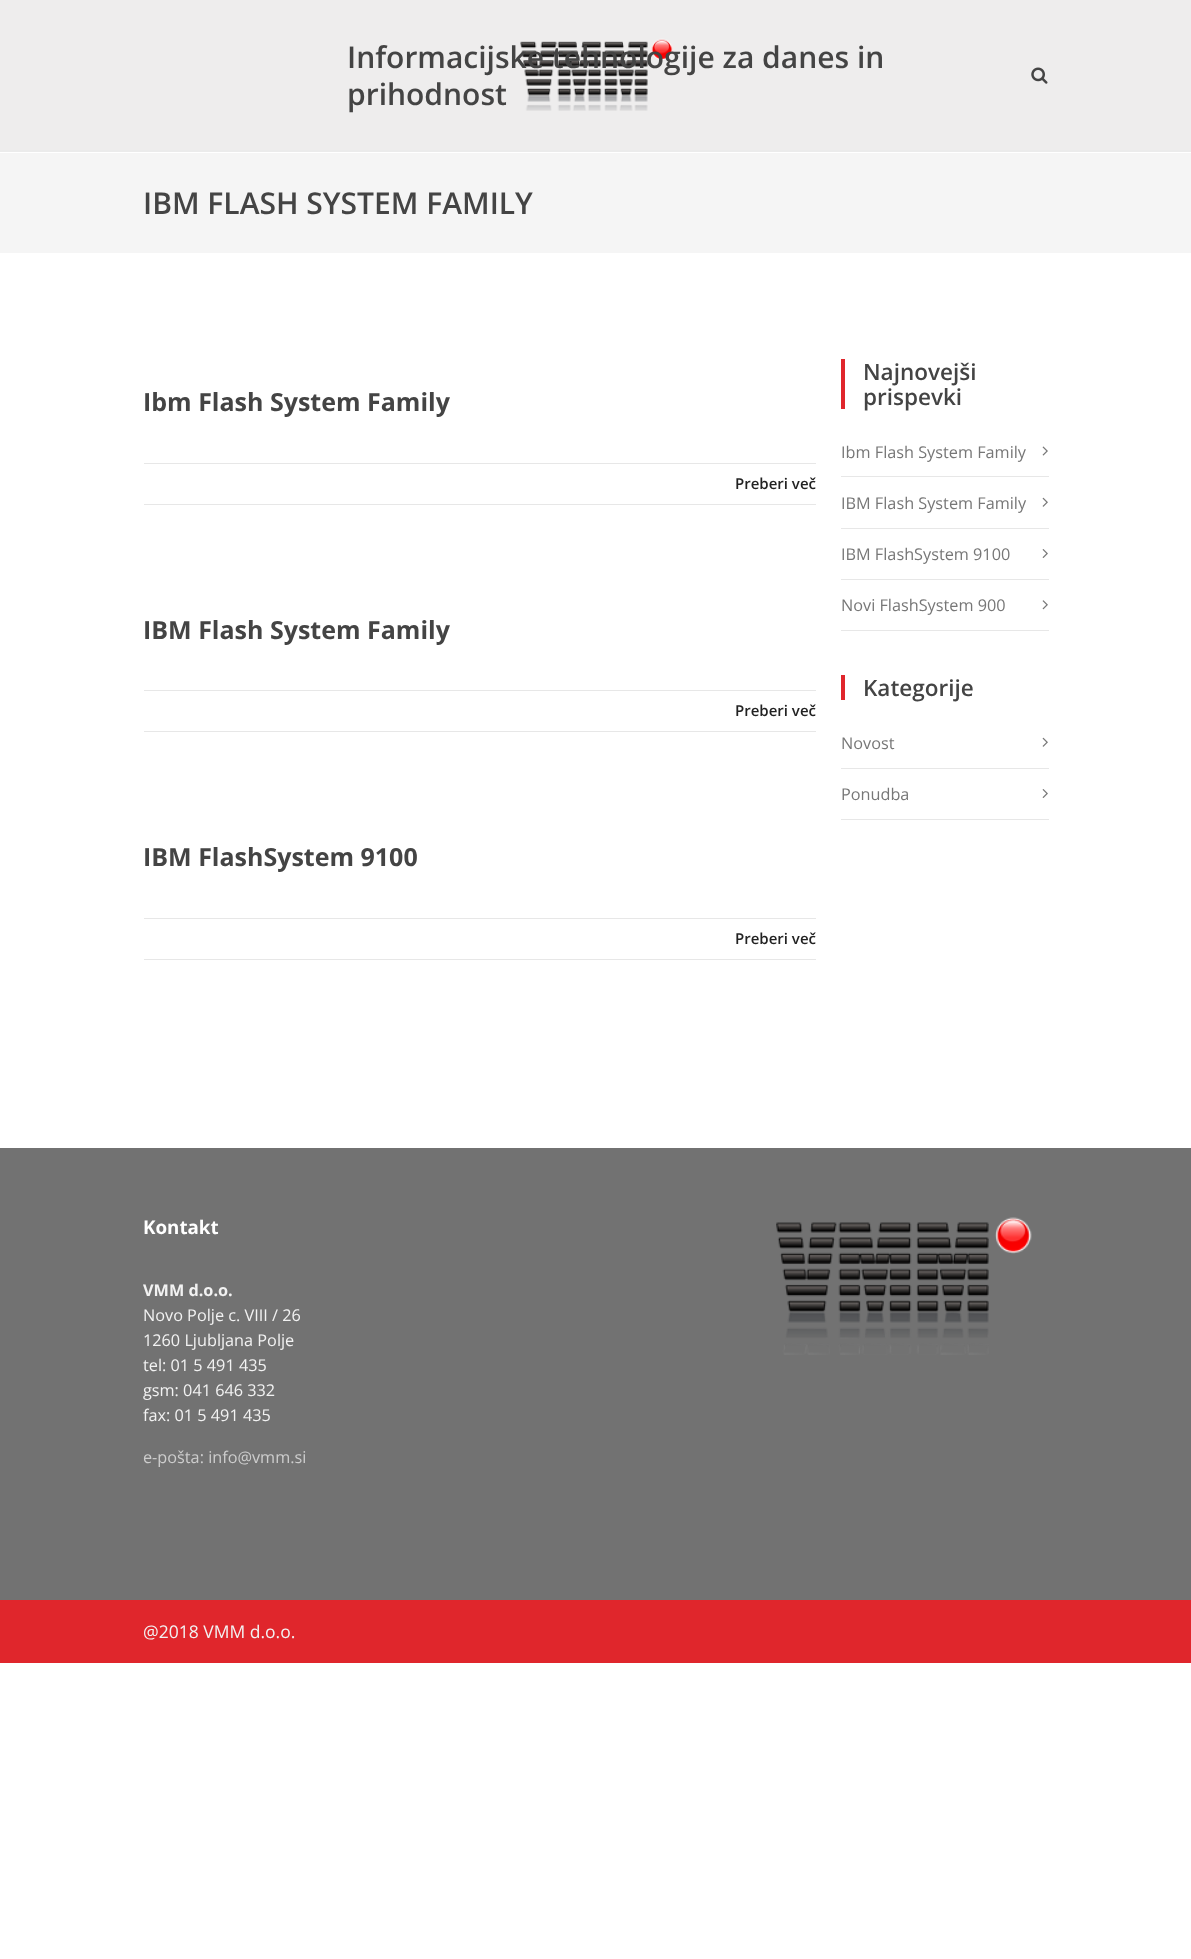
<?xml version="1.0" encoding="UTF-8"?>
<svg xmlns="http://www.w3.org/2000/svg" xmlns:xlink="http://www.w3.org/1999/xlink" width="1191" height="1959">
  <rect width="100%" height="100%" fill="#ffffff" />
  <rect width="1191" height="150" fill="#eeeded" />
  <image x="520" y="38" width="153" height="73" xlink:href="image1.png" />
  <image x="1031" y="67" width="17" height="17" xlink:href="image2.png" />
  <rect y="150" width="1191" height="2" fill="#ebebeb" />
  <rect y="153" width="1191" height="100" fill="#f5f5f5" />
  <rect x="144" y="463" width="672" height="1" fill="#e7e7e7" />
  <rect x="144" y="504" width="672" height="1" fill="#e7e7e7" />
  <rect x="144" y="690" width="672" height="1" fill="#e7e7e7" />
  <rect x="144" y="731" width="672" height="1" fill="#e7e7e7" />
  <rect x="144" y="918" width="672" height="1" fill="#e7e7e7" />
  <rect x="144" y="959" width="672" height="1" fill="#e7e7e7" />
  <rect x="841" y="359" width="4" height="50" fill="#e0262c" />
  <rect x="841" y="476" width="208" height="1" fill="#e7e7e7" />
  <image x="1042" y="446" width="6" height="10" xlink:href="image3.png" />
  <rect x="841" y="528" width="208" height="1" fill="#e7e7e7" />
  <image x="1042" y="497" width="6" height="10" xlink:href="image4.png" />
  <rect x="841" y="579" width="208" height="1" fill="#e7e7e7" />
  <image x="1042" y="549" width="6" height="9" xlink:href="image5.png" />
  <rect x="841" y="630" width="208" height="1" fill="#e7e7e7" />
  <image x="1042" y="600" width="6" height="10" xlink:href="image6.png" />
  <rect x="841" y="675" width="4" height="25" fill="#e0262c" />
  <rect x="841" y="768" width="208" height="1" fill="#e7e7e7" />
  <image x="1042" y="737" width="6" height="10" xlink:href="image4.png" />
  <rect x="841" y="819" width="208" height="1" fill="#e7e7e7" />
  <image x="1042" y="789" width="6" height="9" xlink:href="image5.png" />
  <rect y="1148" width="1191" height="452" fill="#727272" />
  <image x="776" y="1217" width="256" height="138" xlink:href="image7.png" />
  <rect y="1600" width="1191" height="63" fill="#e0262c" />
  <text x="347" y="68" style="font-family: Open Sans; font-size: 30px; font-weight: 600; fill: #444444">Informacijske tehnologije za danes in</text>
  <text x="347" y="105" style="font-family: Open Sans; font-size: 30px; font-weight: 600; fill: #444444">prihodnost</text>
  <text x="143" y="214" style="font-family: Open Sans; font-size: 30px; font-weight: 600; fill: #444444">IBM FLASH SYSTEM FAMILY</text>
  <text x="143" y="411" style="font-family: Open Sans; font-size: 25px; font-weight: bold; fill: #444444">Ibm Flash System Family</text>
  <text x="735" y="489" style="font-family: Open Sans; font-size: 15px; font-weight: 600; fill: #222222">Preberi več</text>
  <text x="143" y="639" style="font-family: Open Sans; font-size: 25px; font-weight: bold; fill: #444444">IBM Flash System Family</text>
  <text x="735" y="716" style="font-family: Open Sans; font-size: 15px; font-weight: 600; fill: #222222">Preberi več</text>
  <text x="143" y="866" style="font-family: Open Sans; font-size: 25px; font-weight: bold; fill: #444444">IBM FlashSystem 9100</text>
  <text x="735" y="944" style="font-family: Open Sans; font-size: 15px; font-weight: 600; fill: #222222">Preberi več</text>
  <text x="863" y="380" style="font-family: Open Sans; font-size: 22.5px; font-weight: 600; fill: #444444">Najnovejši</text>
  <text x="863" y="405" style="font-family: Open Sans; font-size: 22.5px; font-weight: 600; fill: #444444">prispevki</text>
  <text x="841" y="458" style="font-family: Open Sans; font-size: 16.25px; fill: #777777">Ibm Flash System Family</text>
  <text x="841" y="509" style="font-family: Open Sans; font-size: 16.25px; fill: #777777">IBM Flash System Family</text>
  <text x="841" y="560" style="font-family: Open Sans; font-size: 16.25px; fill: #777777">IBM FlashSystem 9100</text>
  <text x="841" y="611" style="font-family: Open Sans; font-size: 16.25px; fill: #777777">Novi FlashSystem 900</text>
  <text x="863" y="696" style="font-family: Open Sans; font-size: 22.5px; font-weight: 600; fill: #444444">Kategorije</text>
  <text x="841" y="749" style="font-family: Open Sans; font-size: 16.25px; fill: #777777">Novost</text>
  <text x="841" y="800" style="font-family: Open Sans; font-size: 16.25px; fill: #777777">Ponudba</text>
  <text x="143" y="1234" style="font-family: Open Sans; font-size: 18.75px; font-weight: bold; fill: #ffffff">Kontakt</text>
  <text x="143" y="1296" style="font-family: Open Sans; font-size: 16.25px; font-weight: bold; fill: #f2f2f2">VMM d.o.o.</text>
  <text x="143" y="1321" style="font-family: Open Sans; font-size: 16.25px; fill: #f2f2f2">Novo Polje c. VIII / 26</text>
  <text x="143" y="1346" style="font-family: Open Sans; font-size: 16.25px; fill: #f2f2f2">1260 Ljubljana Polje</text>
  <text x="143" y="1371" style="font-family: Open Sans; font-size: 16.25px; fill: #f2f2f2">tel: 01 5 491 435</text>
  <text x="143" y="1396" style="font-family: Open Sans; font-size: 16.25px; fill: #f2f2f2">gsm: 041 646 332</text>
  <text x="143" y="1421" style="font-family: Open Sans; font-size: 16.25px; fill: #f2f2f2">fax: 01 5 491 435</text>
  <text x="143" y="1463" style="font-family: Open Sans; font-size: 16.25px; fill: #cdcdcd">e-pošta: info@vmm.si</text>
  <text x="143" y="1638" style="font-family: Open Sans; font-size: 17.5px; fill: #f2f2f2">@2018 VMM d.o.o.</text>
</svg>
